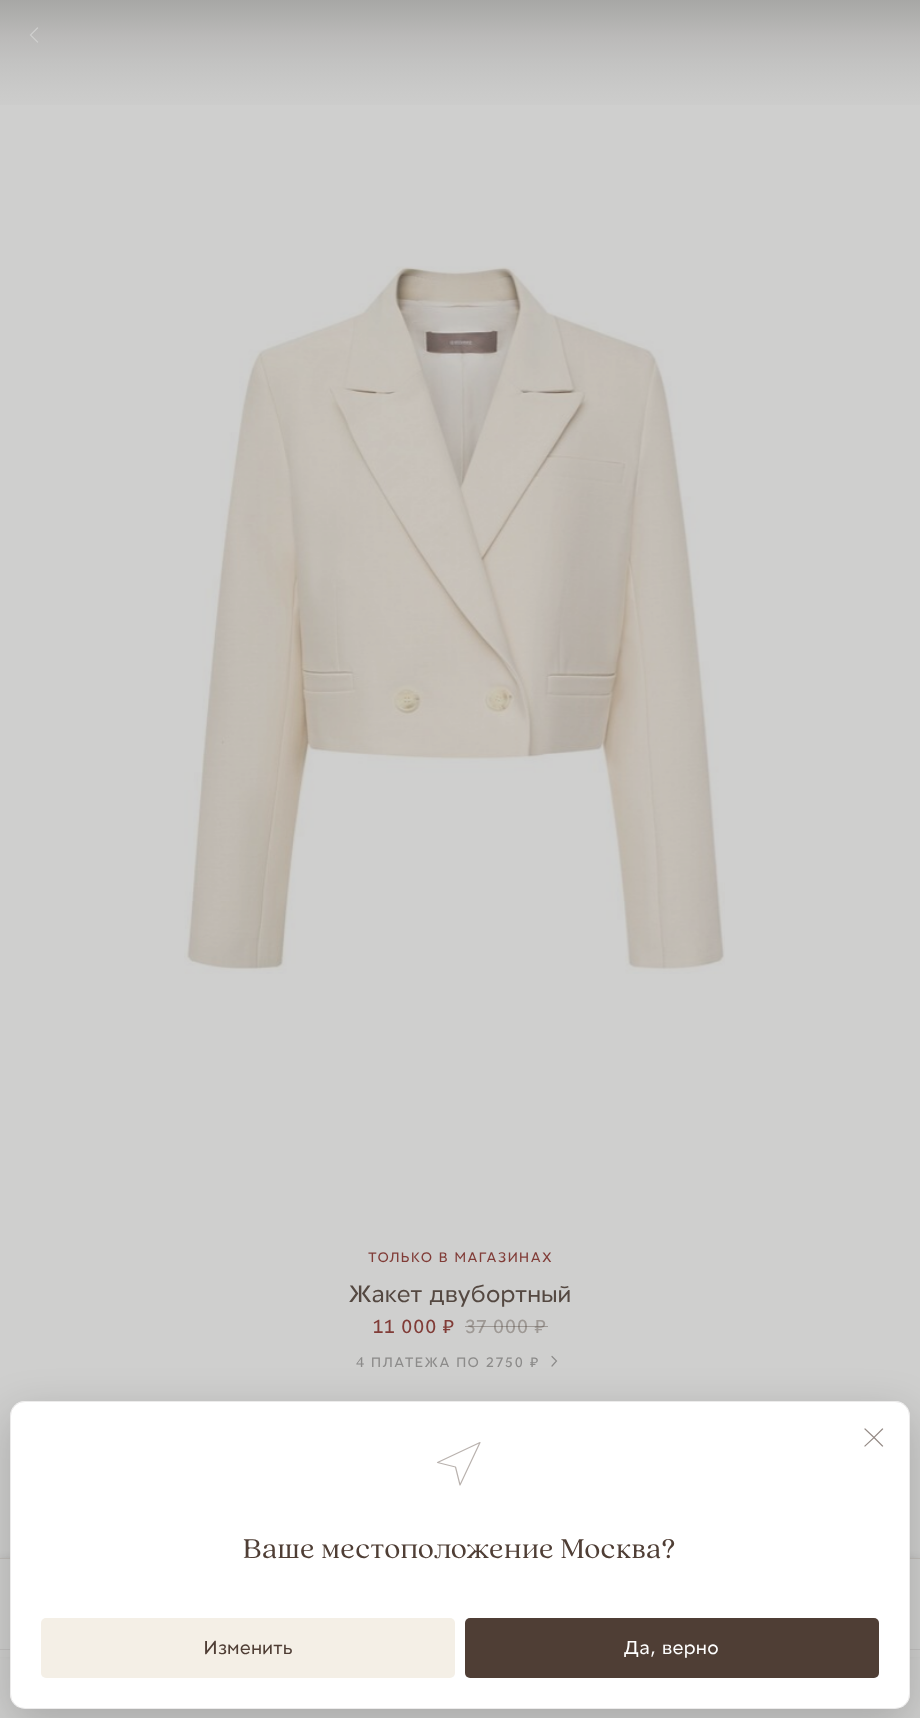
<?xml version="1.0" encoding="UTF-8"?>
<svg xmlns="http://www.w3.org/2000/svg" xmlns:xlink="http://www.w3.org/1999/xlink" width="920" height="1718">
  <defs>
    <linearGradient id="g1" gradientUnits="userSpaceOnUse" x1="460" y1="140" x2="460" y2="0"><stop offset="0" stop-color="#cfcfce" /><stop offset="0.11" stop-color="#cfcfce" /><stop offset="0.23" stop-color="#cdcdcc" /><stop offset="0.38" stop-color="#c9c9c8" /><stop offset="0.55" stop-color="#c3c3c2" /><stop offset="0.73" stop-color="#bbbab9" /><stop offset="1" stop-color="#a7a7a5" /></linearGradient>
  </defs>
  <rect width="100%" height="100%" fill="#cfcfce" />
  <rect width="920" height="105" fill="url(#g1)" />
  <path d="M 37.5 28 l -7 7 l 7 7" fill="none" stroke="#cfcfce" stroke-width="1.2" stroke-linecap="round" />
  <image x="184" y="266" width="541" height="708" xlink:href="image1.png" />
  <path d="M 552 1366 l 4.5 -5 l -4.5 -4.5" fill="none" stroke="#8c8b8a" stroke-width="1.2" stroke-linecap="round" />
  <rect y="1560" width="920" height="91" fill="#1d1c1c" fill-opacity="0.19" filter="blur(4px)" />
  <rect y="1559" width="920" height="90" fill="#cfcfce" />
  <rect y="1558" width="920" height="1" fill="#c1bdb9" />
  <rect y="1650" width="920" height="7" fill="#cfcfce" />
  <rect y="1649" width="920" height="1" fill="#c2c1c0" />
  <rect x="10" y="1415" width="900" height="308" rx="15" fill="#000000" fill-opacity="0.19" filter="blur(22.5px)" />
  <rect x="10" y="1401" width="900" height="308" rx="15" fill="#ffffff" />
  <rect x="10.5" y="1401.5" width="899" height="307" rx="14.5" fill="none" stroke="#5f5e5c" stroke-opacity="0.12" />
  <path d="M 865 1429 l 9 8.5 m 8.5 8.5 l -8.5 -8.5 m 0 0 l 8.5 -8.5 m -8.5 8.5 l -9 8.5" fill="none" stroke="#958b86" stroke-width="1.2" stroke-linecap="square" />
  <path d="M 437.5 1462.5 l 42.5 -20 l -20 42.5 l -4.5 -18 z" fill="none" stroke="#b9b2ae" stroke-width="1.2" stroke-linecap="square" stroke-linejoin="round" />
  <rect x="41" y="1618" width="414" height="60" rx="5" fill="#f4efe6" />
  <rect x="465" y="1618" width="414" height="60" rx="5" fill="#4f3e35" />
  <text x="368" y="1262" style="font-family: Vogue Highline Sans; font-size: 13.75px; letter-spacing: 1.9px; fill: #813c37">ТОЛЬКО В МАГАЗИНАХ</text>
  <text x="349" y="1302" style="font-family: Vogue Highline Sans; font-size: 23.75px; letter-spacing: 0.9px; fill: #544841">Жакет двубортный</text>
  <text x="373" y="1333" style="font-family: Vogue Highline Sans; font-size: 18.75px; letter-spacing: 0.9px; fill: #813c37">11 000 ₽</text>
  <text x="465" y="1333" style="font-family: Vogue Highline Sans; font-size: 18.75px; letter-spacing: 0.9px; fill: #9e9995">37 000 ₽</text>
  <rect x="465" y="1326" width="83" height="1" fill="#544841" fill-opacity="0.4" />
  <text x="356" y="1367" style="font-family: Vogue Highline Sans; font-size: 13.75px; letter-spacing: 1.9px; fill: #8c8b8a">4 ПЛАТЕЖА ПО 2750 ₽</text>
  <text x="243" y="1558" style="font-family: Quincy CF; font-size: 30px; letter-spacing: 0.6px; fill: #4f3e35">Ваше местоположение Москва?</text>
  <text x="204" y="1654" style="font-family: Vogue Highline Sans; font-size: 18.75px; letter-spacing: 0.9px; fill: #4f3e35">Изменить</text>
  <text x="624" y="1654" style="font-family: Vogue Highline Sans; font-size: 18.75px; letter-spacing: 0.9px; fill: #ffffff">Да, верно</text>
</svg>
